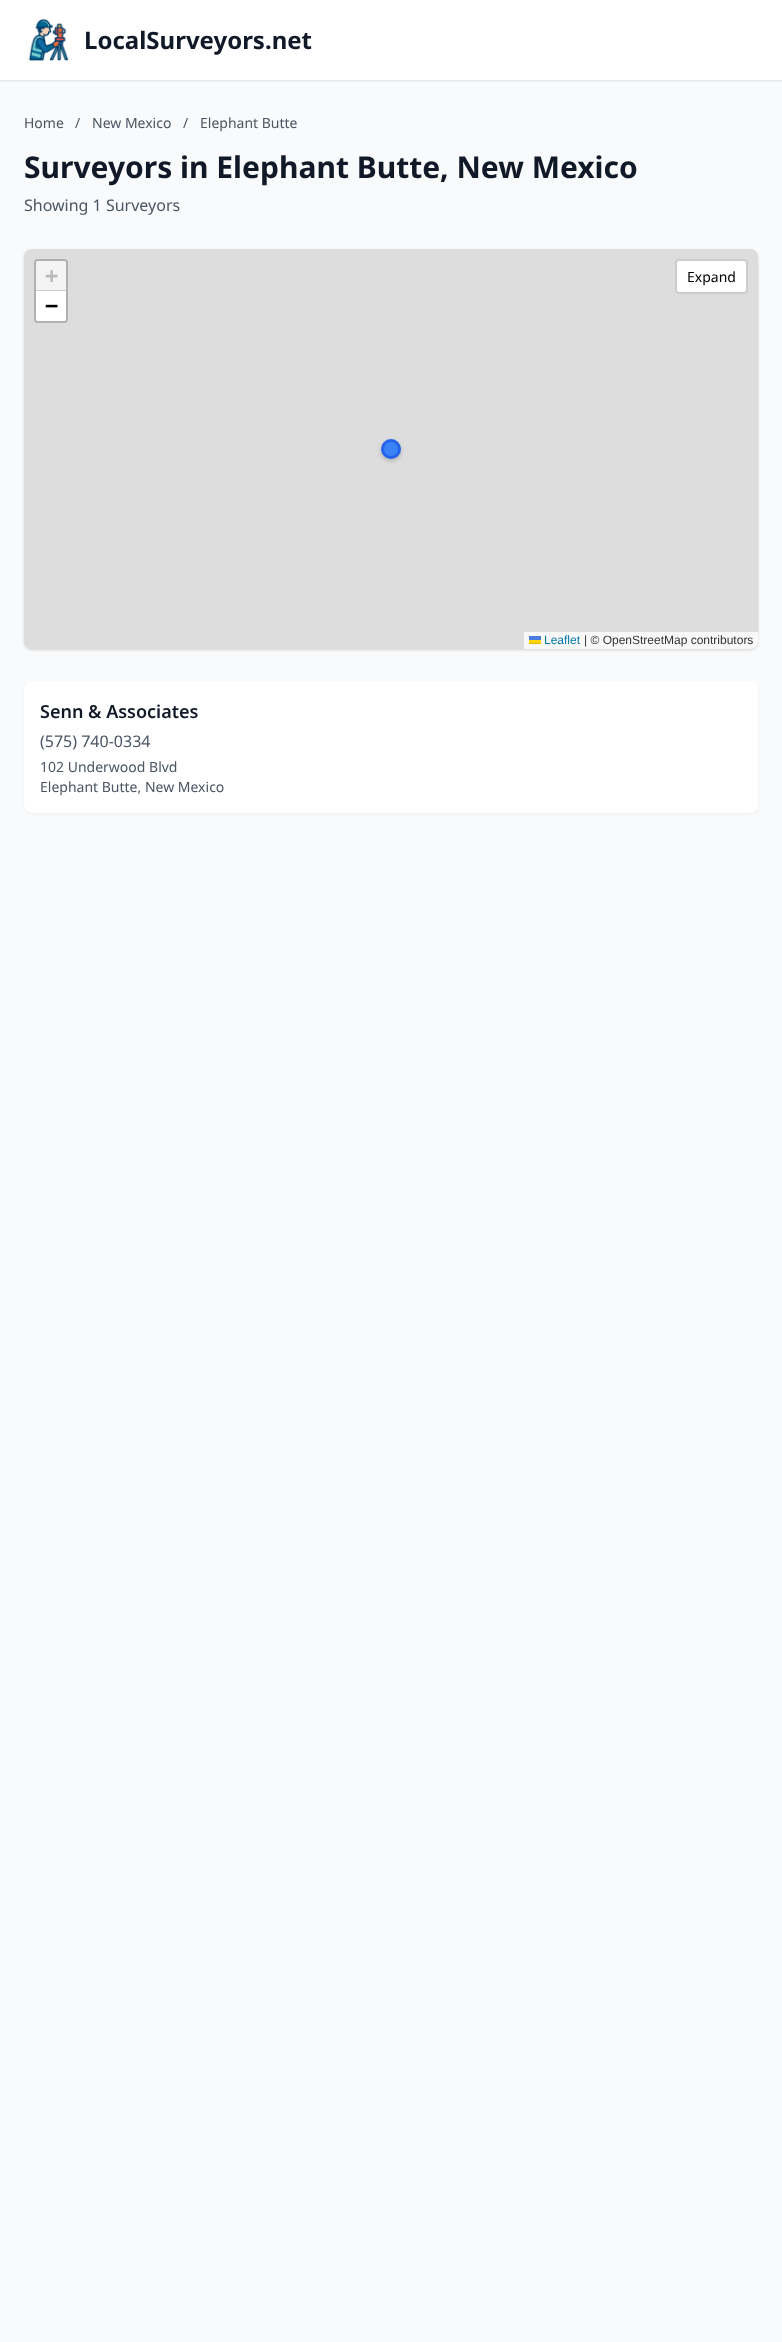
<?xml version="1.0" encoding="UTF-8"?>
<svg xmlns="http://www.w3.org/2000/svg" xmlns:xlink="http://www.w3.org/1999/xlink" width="782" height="2342">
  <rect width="100%" height="100%" fill="#f9fafb" />
  <rect y="1" width="782" height="81" fill="#000000" fill-opacity="0.05" filter="blur(1px)" />
  <rect width="782" height="80" fill="#ffffff" />
  <rect y="80" width="782" height="1" fill="#e5e7eb" />
  <image x="28" y="18" width="41" height="44" xlink:href="image1.png" />
  <rect x="24" y="250" width="734" height="400" rx="8" fill="#000000" fill-opacity="0.05" filter="blur(1px)" />
  <rect x="24" y="250" width="734" height="400" rx="8" fill="#000000" fill-opacity="0.1" filter="blur(1.5px)" />
  <rect x="24" y="249" width="734" height="400" rx="8" fill="#dddddd" />
  <rect x="35" y="260" width="32" height="62" rx="3" fill="none" stroke="#b1b1b1" stroke-width="2" />
  <path d="M 38 261 h 26 c 1 0 2 1 2 2 v 27 h -30 v -27 c 0 -1 1 -2 2 -2 z" fill="#f4f4f4" />
  <rect x="36" y="290" width="30" height="1" fill="#cccccc" />
  <path d="M 36 291 h 30 v 28 c 0 1 -1 2 -2 2 h -26 c -1 0 -2 -1 -2 -2 z" fill="#ffffff" />
  <path d="M 524 632 h 234 v 9 c 0 4.5 -3.5 8 -8 8 h -226 z" fill="#ffffff" fill-opacity="0.8" />
  <rect x="529" y="636" width="12" height="4" fill="#4c7be1" />
  <rect x="529" y="640" width="12" height="3" fill="#ffd500" />
  <rect x="529" y="643" width="12" height="1" fill="#e0bc00" />
  <rect x="381" y="441" width="20" height="20" rx="10" fill="#000000" fill-opacity="0.2" filter="blur(2px)" />
  <circle cx="391" cy="449" r="8.5" fill="#3b82f6" stroke="#2563eb" stroke-width="3" />
  <rect x="675" y="259" width="73" height="35" rx="4" fill="#ffffff" />
  <rect x="676" y="260" width="71" height="33" rx="3" fill="none" stroke="#000000" stroke-opacity="0.2" stroke-width="2" />
  <rect x="24" y="682" width="734" height="132" rx="8" fill="#000000" fill-opacity="0.05" filter="blur(1px)" />
  <rect x="24" y="681" width="734" height="132" rx="8" fill="#ffffff" />
  <text x="84" y="49" style="font-family: Noto Sans; font-size: 24px; font-weight: bold; fill: #111827">LocalSurveyors.net</text>
  <text x="24" y="128" style="font-family: Noto Sans; font-size: 14px; fill: #4b5563">Home</text>
  <text x="75" y="128" style="font-family: Noto Sans; font-size: 14px; fill: #4b5563">/</text>
  <text x="92" y="128" style="font-family: Noto Sans; font-size: 14px; fill: #4b5563">New Mexico</text>
  <text x="183" y="128" style="font-family: Noto Sans; font-size: 14px; fill: #4b5563">/</text>
  <text x="200" y="128" style="font-family: Noto Sans; font-size: 14px; fill: #4b5563">Elephant Butte</text>
  <text x="24" y="178" style="font-family: Noto Sans; font-size: 30px; font-weight: bold; fill: #111827">Surveyors in Elephant Butte, New Mexico</text>
  <text x="24" y="211" style="font-family: Noto Sans; font-size: 16px; fill: #4b5563">Showing 1 Surveyors</text>
  <text x="45" y="283" style="font-family: DejaVu Sans Mono; font-size: 22px; font-weight: bold; fill: #bbbbbb">+</text>
  <text x="45" y="313" style="font-family: DejaVu Sans Mono; font-size: 22px; font-weight: bold; fill: #000000">−</text>
  <text x="544" y="644" style="font-family: Liberation Sans; font-size: 12px; fill: #0078a8">Leaflet</text>
  <text x="584" y="644" style="font-family: Liberation Sans; font-size: 12px; fill: #333333">| © OpenStreetMap contributors</text>
  <text x="687" y="282" style="font-family: Noto Sans; font-size: 14px; fill: #000000">Expand</text>
  <text x="40" y="718" style="font-family: Noto Sans; font-size: 18px; font-weight: 600; fill: #111827">Senn &amp; Associates</text>
  <text x="40" y="747" style="font-family: Noto Sans; font-size: 16px; fill: #4b5563">(575) 740-0334</text>
  <text x="40" y="772" style="font-family: Noto Sans; font-size: 14px; fill: #4b5563">102 Underwood Blvd</text>
  <text x="40" y="792" style="font-family: Noto Sans; font-size: 14px; fill: #4b5563">Elephant Butte, New Mexico</text>
</svg>
